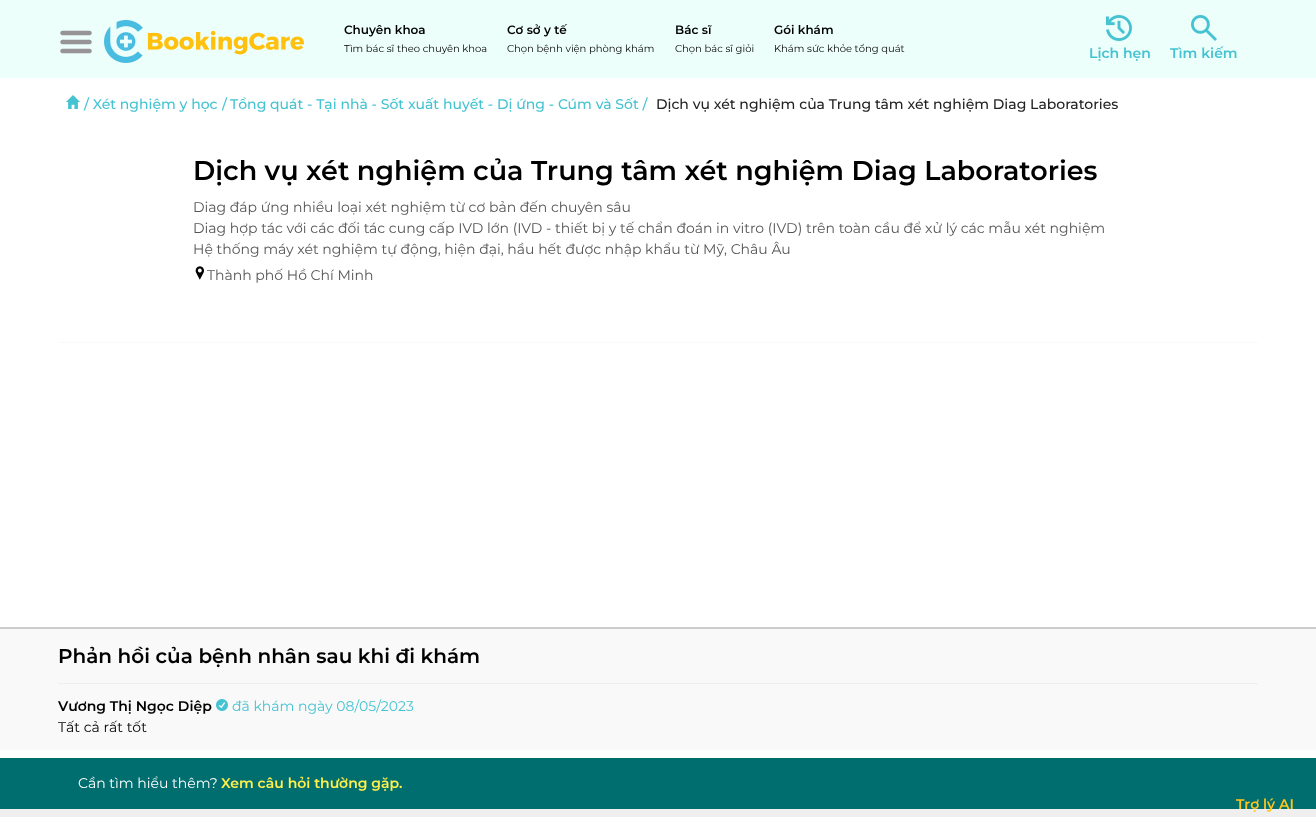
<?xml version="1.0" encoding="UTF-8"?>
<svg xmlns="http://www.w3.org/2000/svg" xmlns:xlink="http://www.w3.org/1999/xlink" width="1316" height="817">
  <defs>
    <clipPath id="clip1"><rect x="222" y="94" width="417" height="21" /></clipPath>
  </defs>
  <rect width="100%" height="100%" fill="#ffffff" />
  <rect width="1316" height="78" fill="#edfffa" />
  <image x="60" y="30" width="32" height="24" xlink:href="image1.png" />
  <image x="104" y="20" width="200" height="43" xlink:href="image2.png" />
  <image x="1106" y="15" width="26" height="26" xlink:href="image3.png" />
  <image x="1191" y="15" width="26" height="26" xlink:href="image4.png" />
  <image x="66" y="95" width="14" height="14" xlink:href="image5.png" />
  <image x="195" y="266" width="9" height="14" xlink:href="image6.png" />
  <rect x="58" y="342" width="1200" height="1" fill="#f9f9f9" />
  <rect y="627" width="1316" height="2" fill="#cccccc" />
  <rect y="629" width="1316" height="121" fill="#f9f9f9" />
  <rect x="58" y="683" width="1200" height="1" fill="#eeeeee" />
  <image x="216" y="699" width="12" height="12" xlink:href="image7.png" />
  <rect y="758" width="1316" height="51" fill="#006e6f" />
  <rect y="809" width="1316" height="8" fill="#efefef" />
  <text x="344" y="34" style="font-family: Montserrat; font-size: 12px; font-weight: 600; fill: #000000">Chuyên khoa</text>
  <text x="344" y="52" style="font-family: Montserrat; font-size: 10px; fill: #000000">Tìm bác sĩ theo chuyên khoa</text>
  <text x="507" y="34" style="font-family: Montserrat; font-size: 12px; font-weight: 600; fill: #000000">Cơ sở y tế</text>
  <text x="507" y="52" style="font-family: Montserrat; font-size: 10px; fill: #000000">Chọn bệnh viện phòng khám</text>
  <text x="675" y="34" style="font-family: Montserrat; font-size: 12px; font-weight: 600; fill: #000000">Bác sĩ</text>
  <text x="675" y="52" style="font-family: Montserrat; font-size: 10px; fill: #000000">Chọn bác sĩ giỏi</text>
  <text x="774" y="34" style="font-family: Montserrat; font-size: 12px; font-weight: 600; fill: #000000">Gói khám</text>
  <text x="774" y="52" style="font-family: Montserrat; font-size: 10px; fill: #000000">Khám sức khỏe tổng quát</text>
  <text x="1089" y="58" style="font-family: Montserrat; font-size: 14px; font-weight: 600; fill: #45c3d2">Lịch hẹn</text>
  <text x="1170" y="58" style="font-family: Montserrat; font-size: 14px; font-weight: 600; fill: #45c3d2">Tìm kiếm</text>
  <text x="84" y="109" style="font-family: Montserrat; font-size: 14px; font-weight: 500; fill: #45c3d2">/ Xét nghiệm y học</text>
  <g clip-path="url(#clip1)">
    <text x="222" y="109" style="font-family: Montserrat; font-size: 14px; font-weight: 500; fill: #45c3d2">/</text>
  </g>
  <text x="230" y="109" style="font-family: Montserrat; font-size: 14px; font-weight: 500; fill: #45c3d2">Tổng quát - Tại nhà - Sốt xuất huyết - Dị ứng - Cúm và Sốt /</text>
  <text x="656" y="109" style="font-family: Montserrat; font-size: 14px; font-weight: 500; fill: #222222">Dịch vụ xét nghiệm của Trung tâm xét nghiệm Diag Laboratories</text>
  <text x="193" y="180" style="font-family: Montserrat; font-size: 27px; font-weight: 600; fill: #000000">Dịch vụ xét nghiệm của Trung tâm xét nghiệm Diag Laboratories</text>
  <text x="193" y="212" style="font-family: Montserrat; font-size: 14px; fill: #555555">Diag đáp ứng nhiều loại xét nghiệm từ cơ bản đến chuyên sâu</text>
  <text x="193" y="233" style="font-family: Montserrat; font-size: 14px; fill: #555555">Diag hợp tác với các đối tác cung cấp IVD lớn (IVD - thiết bị y tế chẩn đoán in vitro (IVD) trên toàn cầu để xử lý các mẫu xét nghiệm</text>
  <text x="193" y="254" style="font-family: Montserrat; font-size: 14px; fill: #555555">Hệ thống máy xét nghiệm tự động, hiện đại, hầu hết được nhập khẩu từ Mỹ, Châu Âu</text>
  <text x="207" y="280" style="font-family: Montserrat; font-size: 14px; fill: #555555">Thành phố Hồ Chí Minh</text>
  <text x="58" y="663" style="font-family: Montserrat; font-size: 20px; font-weight: 600; fill: #000000">Phản hồi của bệnh nhân sau khi đi khám</text>
  <text x="58" y="711" style="font-family: Montserrat; font-size: 14px; font-weight: 600; fill: #000000">Vương Thị Ngọc Diệp</text>
  <text x="232" y="711" style="font-family: Montserrat; font-size: 14px; fill: #45c3d2">đã khám ngày 08/05/2023</text>
  <text x="58" y="732" style="font-family: Montserrat; font-size: 14px; fill: #000000">Tất cả rất tốt</text>
  <text x="78" y="788" style="font-family: Montserrat; font-size: 14px; fill: #ffffff">Cần tìm hiểu thêm?</text>
  <text x="221" y="788" style="font-family: Montserrat; font-size: 14px; font-weight: 600; fill: #fff04b">Xem câu hỏi thường gặp.</text>
  <text x="1236" y="809" style="font-family: Montserrat; font-size: 14px; font-weight: 600; fill: #fec51d">Trợ lý AI</text>
</svg>
